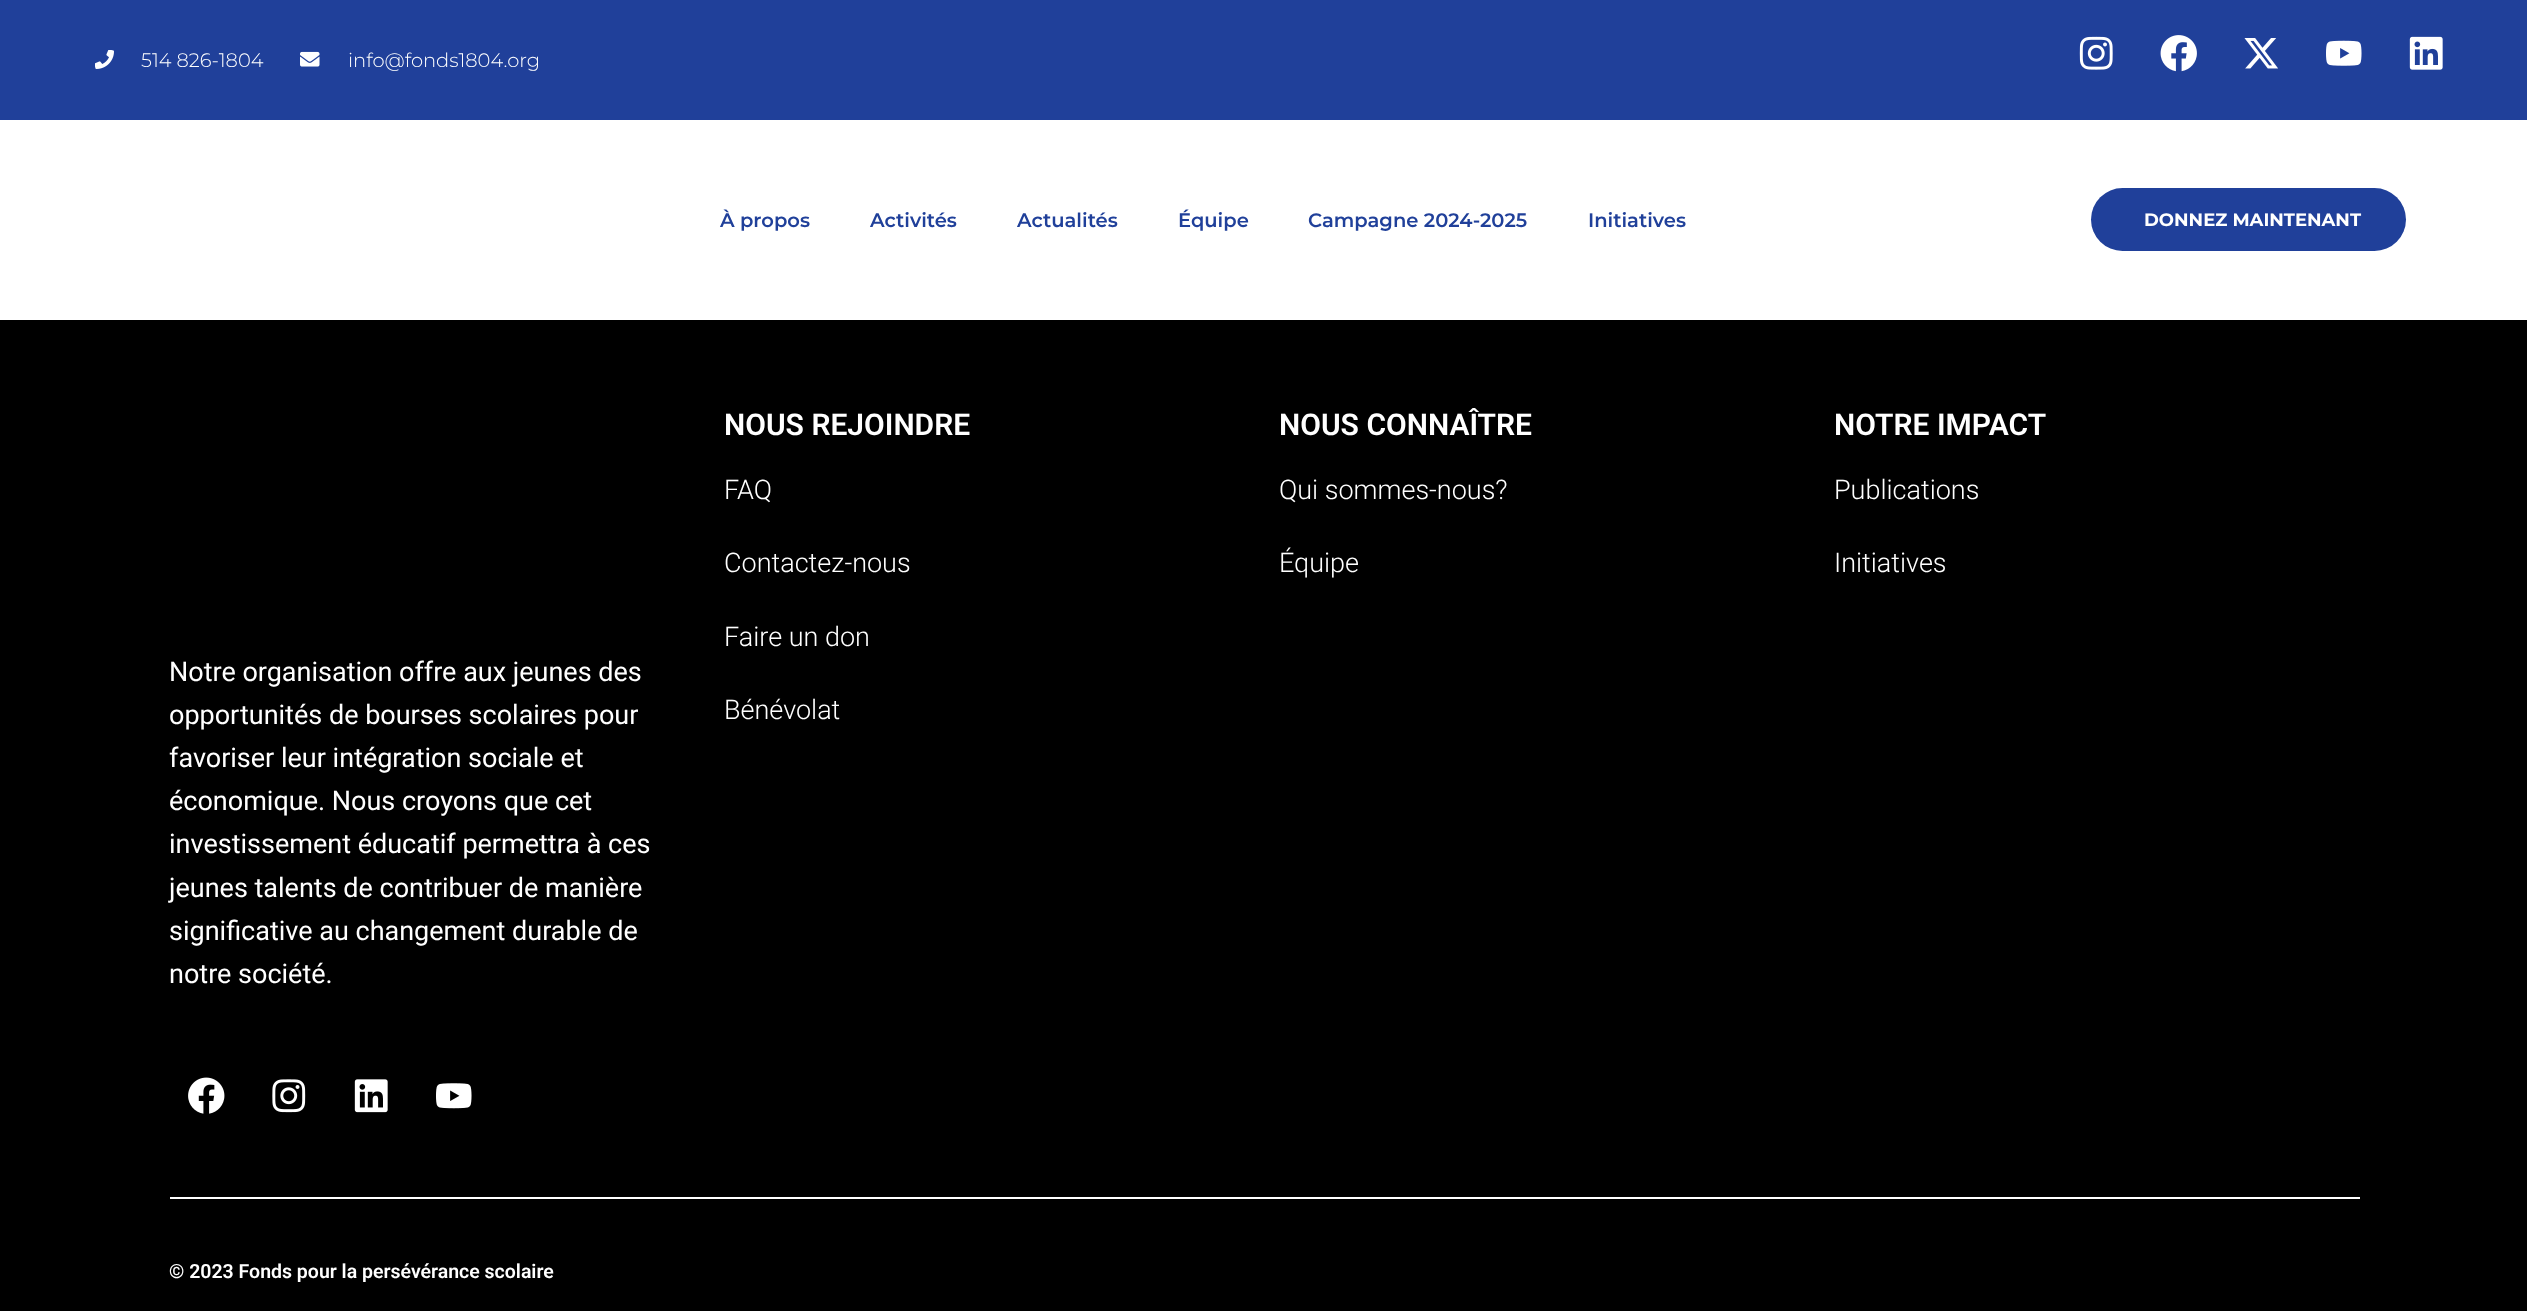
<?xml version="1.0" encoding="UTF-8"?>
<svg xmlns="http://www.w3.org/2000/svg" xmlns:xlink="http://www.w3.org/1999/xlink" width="2527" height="1314">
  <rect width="100%" height="100%" fill="#ffffff" />
  <rect y="320" width="2527" height="991" fill="#000000" />
  <rect y="8" width="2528" height="319" fill="#000000" fill-opacity="0.1" filter="blur(22.5px)" />
  <rect width="2527" height="120" fill="#20409a" />
  <image x="95" y="50" width="19" height="19" xlink:href="image1.png" />
  <image x="300" y="51" width="20" height="16" xlink:href="image2.png" />
  <image x="2079" y="36" width="34" height="34" xlink:href="image3.png" />
  <image x="2160" y="35" width="37" height="37" xlink:href="image4.png" />
  <image x="2244" y="38" width="34" height="31" xlink:href="image5.png" />
  <image x="2326" y="40" width="36" height="26" xlink:href="image6.png" />
  <image x="2409" y="36" width="34" height="34" xlink:href="image7.png" />
  <rect y="120" width="2527" height="200" fill="#ffffff" />
  <rect x="2091" y="188" width="315" height="63" rx="31.5" fill="#20409a" />
  <image x="188" y="1077" width="37" height="37" xlink:href="image8.png" />
  <image x="272" y="1079" width="34" height="34" xlink:href="image9.png" />
  <image x="354" y="1079" width="34" height="34" xlink:href="image10.png" />
  <image x="436" y="1083" width="36" height="26" xlink:href="image11.png" />
  <rect x="170" y="1197" width="2190" height="2" fill="#ffffff" />
  <text x="141" y="67" style="font-family: Montserrat; font-size: 19.5px; font-weight: 300; fill: #ffffff">514 826-1804</text>
  <text x="348" y="67" style="font-family: Montserrat; font-size: 19.5px; font-weight: 300; fill: #ffffff">info@fonds1804.org</text>
  <text x="720" y="227" style="font-family: Montserrat; font-size: 19.5px; font-weight: 600; fill: #20409a">À propos</text>
  <text x="870" y="227" style="font-family: Montserrat; font-size: 19.5px; font-weight: 600; fill: #20409a">Activités</text>
  <text x="1017" y="227" style="font-family: Montserrat; font-size: 19.5px; font-weight: 600; fill: #20409a">Actualités</text>
  <text x="1178" y="227" style="font-family: Montserrat; font-size: 19.5px; font-weight: 600; fill: #20409a">Équipe</text>
  <text x="1308" y="227" style="font-family: Montserrat; font-size: 19.5px; font-weight: 600; fill: #20409a">Campagne 2024-2025</text>
  <text x="1588" y="227" style="font-family: Montserrat; font-size: 19.5px; font-weight: 600; fill: #20409a">Initiatives</text>
  <text x="2144" y="226" style="font-family: Montserrat; font-size: 18px; font-weight: bold; fill: #ffffff">DONNEZ MAINTENANT</text>
  <text x="724" y="435" style="font-family: Roboto; font-size: 30px; font-weight: 600; fill: #ffffff">NOUS REJOINDRE</text>
  <text x="724" y="499" style="font-family: Roboto; font-size: 27px; font-weight: 300; fill: #ffffff">FAQ</text>
  <text x="724" y="572" style="font-family: Roboto; font-size: 27px; font-weight: 300; fill: #ffffff">Contactez-nous</text>
  <text x="724" y="646" style="font-family: Roboto; font-size: 27px; font-weight: 300; fill: #ffffff">Faire un don</text>
  <text x="724" y="719" style="font-family: Roboto; font-size: 27px; font-weight: 300; fill: #ffffff">Bénévolat</text>
  <text x="1279" y="435" style="font-family: Roboto; font-size: 30px; font-weight: 600; fill: #ffffff">NOUS CONNAÎTRE</text>
  <text x="1279" y="499" style="font-family: Roboto; font-size: 27px; font-weight: 300; fill: #ffffff">Qui sommes-nous?</text>
  <text x="1279" y="572" style="font-family: Roboto; font-size: 27px; font-weight: 300; fill: #ffffff">Équipe</text>
  <text x="1834" y="435" style="font-family: Roboto; font-size: 30px; font-weight: 600; fill: #ffffff">NOTRE IMPACT</text>
  <text x="1834" y="499" style="font-family: Roboto; font-size: 27px; font-weight: 300; fill: #ffffff">Publications</text>
  <text x="1834" y="572" style="font-family: Roboto; font-size: 27px; font-weight: 300; fill: #ffffff">Initiatives</text>
  <text x="169" y="681" style="font-family: Roboto; font-size: 27px; fill: #ffffff">Notre organisation offre aux jeunes des</text>
  <text x="169" y="724" style="font-family: Roboto; font-size: 27px; fill: #ffffff">opportunités de bourses scolaires pour</text>
  <text x="169" y="767" style="font-family: Roboto; font-size: 27px; fill: #ffffff">favoriser leur intégration sociale et</text>
  <text x="169" y="810" style="font-family: Roboto; font-size: 27px; fill: #ffffff">économique. Nous croyons que cet</text>
  <text x="169" y="853" style="font-family: Roboto; font-size: 27px; fill: #ffffff">investissement éducatif permettra à ces</text>
  <text x="169" y="897" style="font-family: Roboto; font-size: 27px; fill: #ffffff">jeunes talents de contribuer de manière</text>
  <text x="169" y="940" style="font-family: Roboto; font-size: 27px; fill: #ffffff">significative au changement durable de</text>
  <text x="169" y="983" style="font-family: Roboto; font-size: 27px; fill: #ffffff">notre société.</text>
  <text x="169" y="1278" style="font-family: Roboto; font-size: 19.5px; font-weight: 600; fill: #ffffff">© 2023 Fonds pour la persévérance scolaire</text>
</svg>
